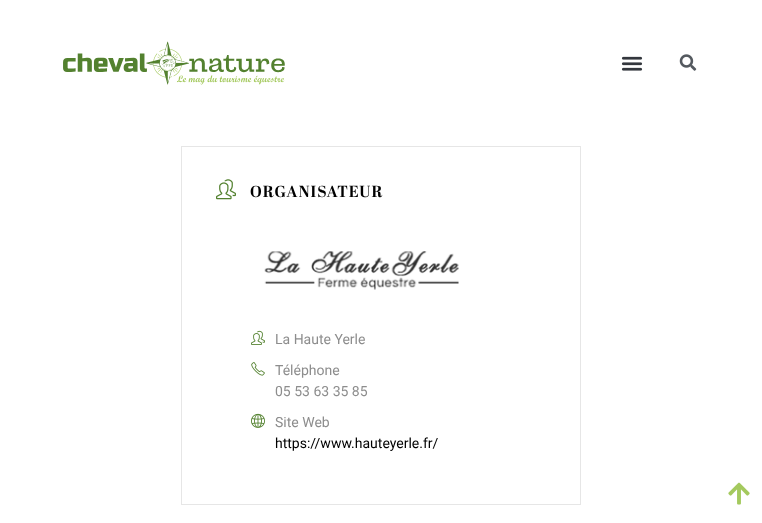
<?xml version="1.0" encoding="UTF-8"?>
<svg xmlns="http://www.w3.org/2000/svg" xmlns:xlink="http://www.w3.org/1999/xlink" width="762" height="523">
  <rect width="100%" height="100%" fill="#ffffff" />
  <image x="63" y="41" width="222" height="44" xlink:href="image1.png" />
  <image x="621" y="56" width="22" height="15" xlink:href="image2.png" />
  <image x="679" y="54" width="18" height="17" xlink:href="image3.png" />
  <rect x="181.5" y="146.5" width="399" height="358" fill="none" stroke="#e6e6e6" />
  <image x="216" y="179" width="20" height="21" xlink:href="image4.png" />
  <image x="264" y="251" width="195" height="39" xlink:href="image5.png" />
  <image x="251" y="330" width="14" height="15" xlink:href="image6.png" />
  <image x="251" y="362" width="14" height="14" xlink:href="image7.png" />
  <image x="251" y="413" width="14" height="15" xlink:href="image8.png" />
  <image x="728" y="482" width="22" height="23" xlink:href="image9.png" />
  <text x="250" y="197" style="font-family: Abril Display; font-size: 16px; font-weight: bold; letter-spacing: 1px; fill: #000000">ORGANISATEUR</text>
  <text x="275" y="344" style="font-family: Roboto; font-size: 14px; fill: #8d8d8d">La Haute Yerle</text>
  <text x="275" y="375" style="font-family: Roboto; font-size: 14px; fill: #8d8d8d">Téléphone</text>
  <text x="275" y="396" style="font-family: Roboto; font-size: 14px; fill: #8d8d8d">05 53 63 35 85</text>
  <text x="275" y="427" style="font-family: Roboto; font-size: 14px; fill: #8d8d8d">Site Web</text>
  <text x="275" y="448" style="font-family: Roboto; font-size: 14px; fill: #000000">https://www.hauteyerle.fr/</text>
</svg>
